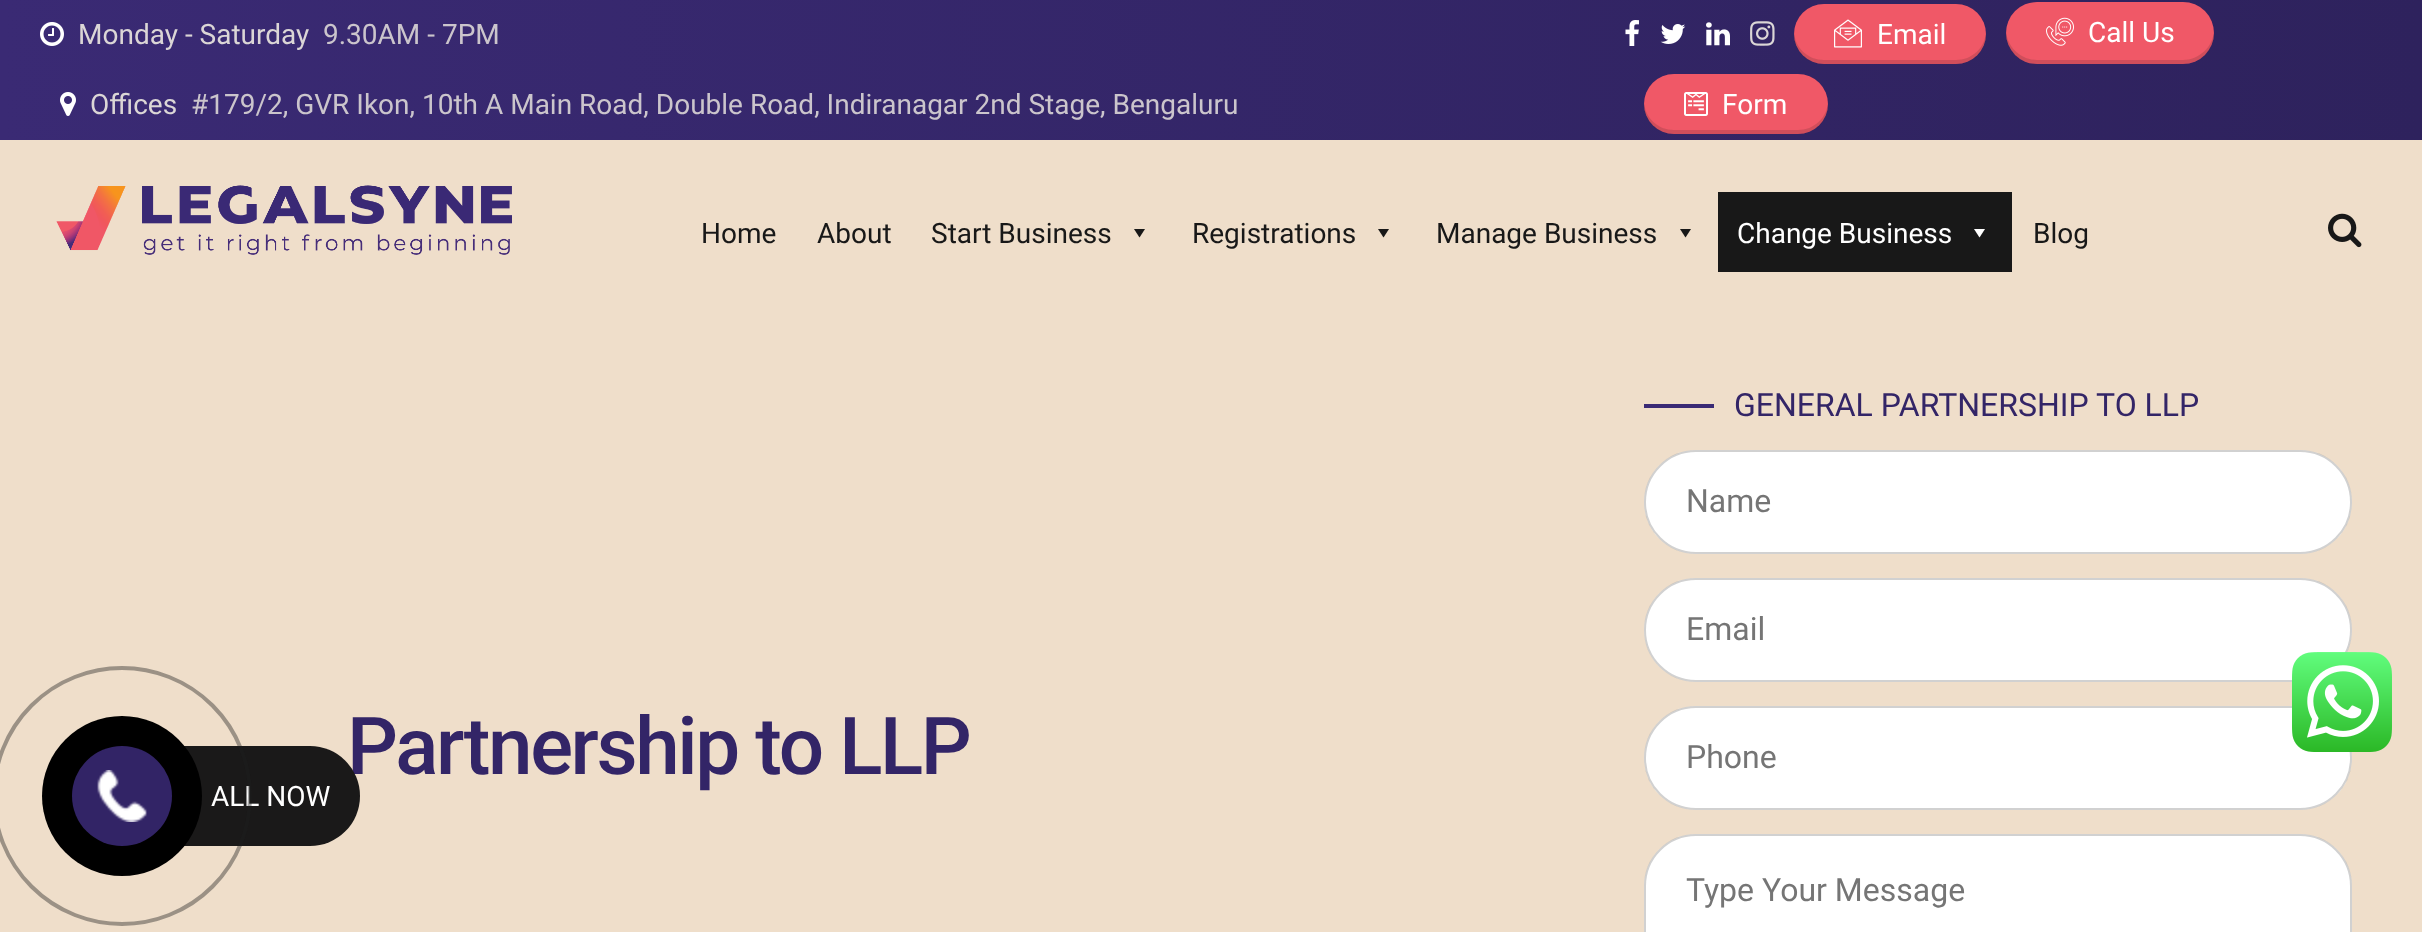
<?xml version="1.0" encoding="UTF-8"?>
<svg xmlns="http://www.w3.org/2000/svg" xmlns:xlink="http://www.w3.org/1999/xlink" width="2422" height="932">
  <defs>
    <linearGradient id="g1" gradientUnits="userSpaceOnUse" x1="0" y1="70" x2="2422" y2="70"><stop offset="0" stop-color="#3a2a74" /><stop offset="1" stop-color="#2e225d" /></linearGradient>
  </defs>
  <rect width="100%" height="100%" fill="#efdeca" />
  <rect width="2422" height="140" fill="url(#g1)" />
  <image x="40" y="22" width="24" height="24" xlink:href="image1.png" />
  <image x="60" y="92" width="16" height="24" xlink:href="image2.png" />
  <image x="1625" y="20" width="14" height="26" xlink:href="image3.png" />
  <image x="1660" y="24" width="26" height="20" xlink:href="image4.png" />
  <image x="1706" y="22" width="24" height="24" xlink:href="image5.png" />
  <image x="1750" y="21" width="25" height="25" xlink:href="image6.png" />
  <rect x="1794" y="4" width="192" height="60" rx="30" fill="#f05867" />
  <path d="M 1794 32 v 2 c 0 17 13 30 30 30 h 132 c 17 0 30 -13 30 -30 v -2 c -1 16 -14 28 -30 28 h -132 c -16 0 -29 -12 -30 -28 z" fill="#181818" fill-opacity="0.15" />
  <image x="1834" y="19" width="28" height="29" xlink:href="image7.png" />
  <rect x="2006" y="2" width="208" height="62" rx="31" fill="#f05867" />
  <path d="M 2006 31 v 2 c 0 17 14 31 31 31 h 146 c 17 0 31 -14 31 -31 v -2 c -1 16 -15 29 -31 29 h -146 c -16 0 -30 -13 -31 -29 z" fill="#181818" fill-opacity="0.15" />
  <image x="2046" y="17" width="28" height="29" xlink:href="image8.png" />
  <rect x="1644" y="74" width="184" height="60" rx="30" fill="#f05867" />
  <path d="M 1644 102 v 2 c 0 17 13 30 30 30 h 124 c 17 0 30 -13 30 -30 v -2 c -1 16 -14 28 -30 28 h -124 c -16 0 -29 -12 -30 -28 z" fill="#181818" fill-opacity="0.15" />
  <image x="1684" y="92" width="24" height="24" xlink:href="image9.png" />
  <image x="56" y="185" width="456" height="70" xlink:href="image10.png" />
  <path d="M 1145 229 l -5.5 8.5 l -5.5 -8.5 z" fill="#181818" />
  <path d="M 1389 229 l -5.5 8.5 l -5.5 -8.5 z" fill="#181818" />
  <path d="M 1691 229 l -5.5 8.5 l -5.5 -8.5 z" fill="#181818" />
  <rect x="1718" y="192" width="294" height="80" fill="#181818" />
  <path d="M 1985 229 l -5.5 8.5 l -5.5 -8.5 z" fill="#ffffff" />
  <image x="2328" y="213" width="34" height="35" xlink:href="image11.png" />
  <rect x="1644" y="404" width="70" height="4" fill="#3a2a75" />
  <rect x="1644" y="450" width="708" height="104" rx="52" fill="#ffffff" />
  <rect x="1645" y="451" width="706" height="102" rx="51" fill="none" stroke="#181818" stroke-opacity="0.2" stroke-width="2" />
  <rect x="1644" y="578" width="708" height="104" rx="52" fill="#ffffff" />
  <rect x="1645" y="579" width="706" height="102" rx="51" fill="none" stroke="#181818" stroke-opacity="0.2" stroke-width="2" />
  <rect x="1644" y="706" width="708" height="104" rx="52" fill="#ffffff" />
  <rect x="1645" y="707" width="706" height="102" rx="51" fill="none" stroke="#181818" stroke-opacity="0.2" stroke-width="2" />
  <rect x="1644" y="834" width="708" height="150" rx="52" fill="#ffffff" />
  <rect x="1645" y="835" width="706" height="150" rx="51" fill="none" stroke="#181818" stroke-opacity="0.2" stroke-width="2" />
  <image x="2292" y="652" width="100" height="100" xlink:href="image12.png" />
  <text x="78" y="44" style="font-family: Roboto; font-size: 28px; fill: #dbd6d6">Monday - Saturday</text>
  <text x="323" y="44" style="font-family: Roboto; font-size: 28px; fill: #cbc5cc">9.30AM - 7PM</text>
  <text x="90" y="114" style="font-family: Roboto; font-size: 28px; fill: #dbd6d6">Offices</text>
  <text x="191" y="114" style="font-family: Roboto; font-size: 28px; fill: #cbc5cc">#179/2, GVR Ikon, 10th A Main Road, Double Road, Indiranagar 2nd Stage, Bengaluru</text>
  <text x="1877" y="44" style="font-family: Roboto; font-size: 28px; fill: #ffffff">Email</text>
  <text x="2088" y="42" style="font-family: Roboto; font-size: 28px; fill: #ffffff">Call Us</text>
  <text x="1722" y="114" style="font-family: Roboto; font-size: 28px; fill: #ffffff">Form</text>
  <text x="701" y="243" style="font-family: Roboto; font-size: 28px; fill: #181818">Home</text>
  <text x="817" y="243" style="font-family: Roboto; font-size: 28px; fill: #181818">About</text>
  <text x="931" y="243" style="font-family: Roboto; font-size: 28px; fill: #181818">Start Business</text>
  <text x="1192" y="243" style="font-family: Roboto; font-size: 28px; fill: #181818">Registrations</text>
  <text x="1436" y="243" style="font-family: Roboto; font-size: 28px; fill: #181818">Manage Business</text>
  <text x="1737" y="243" style="font-family: Roboto; font-size: 28px; fill: #ffffff">Change Business</text>
  <text x="2033" y="243" style="font-family: Roboto; font-size: 28px; fill: #181818">Blog</text>
  <text x="347" y="774" style="font-family: Roboto; font-size: 80px; font-weight: 500; letter-spacing: -2.4px; fill: #332567">Partnership to LLP</text>
  <text x="1734" y="416" style="font-family: Roboto; font-size: 32px; fill: #332567">GENERAL PARTNERSHIP TO LLP</text>
  <text x="1686" y="512" style="font-family: Roboto; font-size: 32px; fill: #757575">Name</text>
  <text x="1686" y="640" style="font-family: Roboto; font-size: 32px; fill: #757575">Email</text>
  <text x="1686" y="768" style="font-family: Roboto; font-size: 32px; fill: #757575">Phone</text>
  <text x="1686" y="901" style="font-family: Roboto; font-size: 32px; fill: #757575">Type Your Message</text>
  <rect x="72" y="746" width="288" height="100" rx="50" fill="#1a1919" />
  <text x="211" y="806" style="font-family: Roboto; font-size: 28px; fill: #ffffff">ALL NOW</text>
  <circle cx="122" cy="796" r="128" fill="none" stroke="#1e1e1e" stroke-opacity="0.4" stroke-width="4" />
  <circle cx="122" cy="796" r="80" fill="#000000" />
  <circle cx="122" cy="796" r="50" fill="#322466" />
  <image x="97" y="770" width="50" height="52" xlink:href="image13.png" />
</svg>
